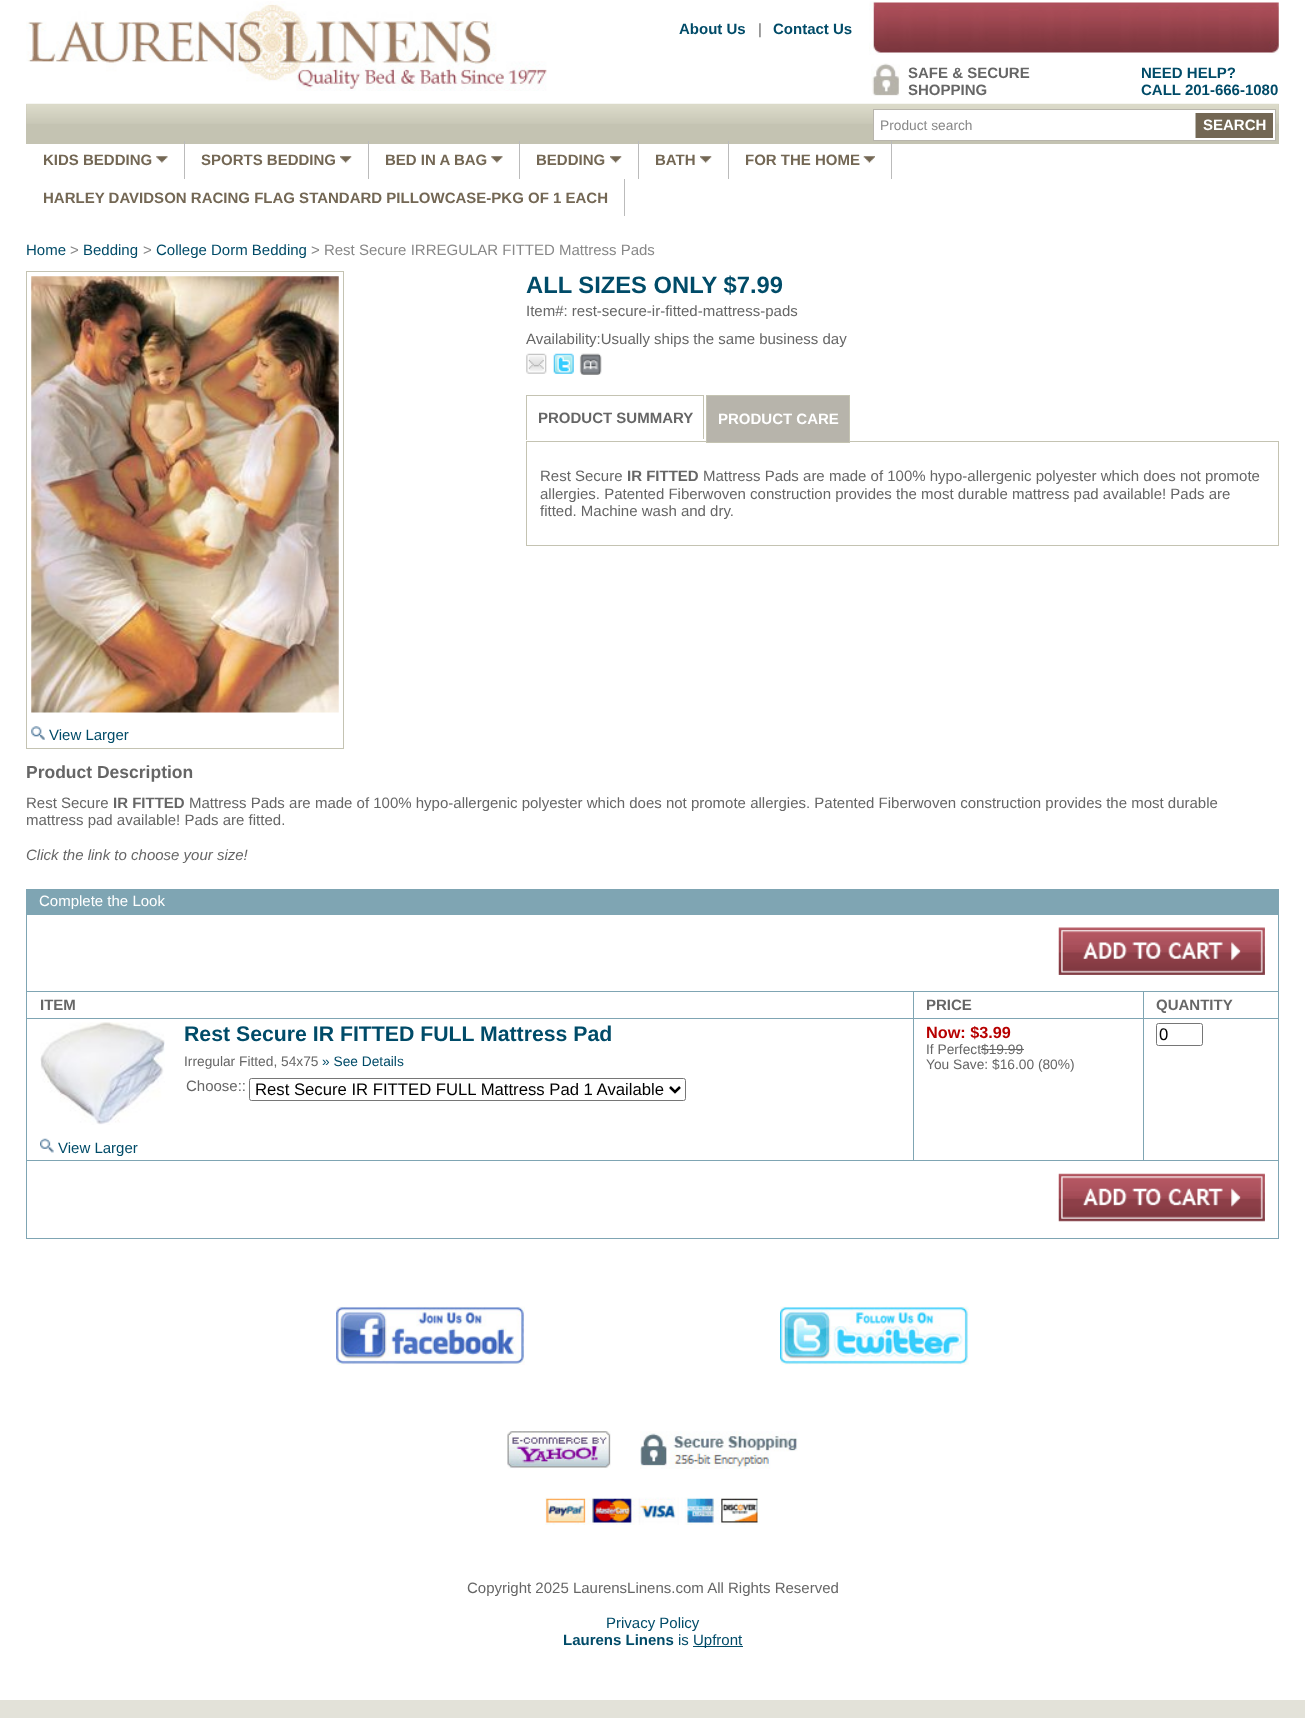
<?xml version="1.0" encoding="UTF-8"?>
<svg xmlns="http://www.w3.org/2000/svg" xmlns:xlink="http://www.w3.org/1999/xlink" width="1305" height="1718">
  <rect width="100%" height="100%" fill="#e3e2d9" />
  <rect width="1305" height="1700" fill="#ffffff" />
  <image x="869" y="1" width="410" height="54" xlink:href="image1.png" />
  <image x="26" y="1" width="521" height="90" xlink:href="image2.png" />
  <image x="871" y="63" width="29" height="33" xlink:href="image3.png" />
  <rect x="26" y="104" width="1253" height="40" fill="#c4c3b2" />
  <image x="26" y="103" width="1253" height="21" xlink:href="image4.png" />
  <rect x="873.5" y="109.5" width="402" height="31" fill="#ffffff" stroke="#b8b5ac" />
  <rect x="1196" y="113" width="77" height="25" fill="#736754" />
  <rect x="1195" y="113" width="1" height="25" fill="#b8b5ac" />
  <rect x="184" y="141" width="1" height="38" fill="#bbbbbb" />
  <image x="156" y="156" width="12" height="7" xlink:href="image5.png" />
  <rect x="368" y="141" width="1" height="38" fill="#bbbbbb" />
  <image x="340" y="156" width="12" height="7" xlink:href="image6.png" />
  <rect x="519" y="141" width="1" height="38" fill="#bbbbbb" />
  <image x="491" y="156" width="12" height="7" xlink:href="image5.png" />
  <rect x="638" y="141" width="1" height="38" fill="#bbbbbb" />
  <image x="610" y="156" width="12" height="7" xlink:href="image6.png" />
  <rect x="728" y="141" width="1" height="38" fill="#bbbbbb" />
  <image x="700" y="156" width="12" height="7" xlink:href="image7.png" />
  <rect x="891" y="141" width="1" height="38" fill="#bbbbbb" />
  <image x="863" y="156" width="12" height="7" xlink:href="image8.png" />
  <rect x="624" y="179" width="1" height="37" fill="#bbbbbb" />
  <image x="526" y="353" width="76" height="22" xlink:href="image9.png" />
  <rect x="526" y="395" width="178" height="1" fill="#c4c3b2" />
  <rect x="703" y="395" width="1" height="45" fill="#c4c3b2" />
  <rect x="703" y="439" width="1" height="1" fill="#ffffff" />
  <rect x="526" y="395" width="1" height="45" fill="#c4c3b2" />
  <rect x="526.5" y="441.5" width="752" height="104" fill="none" stroke="#c4c3b2" />
  <rect x="706.5" y="395.5" width="143" height="47" fill="#b7b4ab" stroke="#c4c3b2" />
  <rect x="26.5" y="271.5" width="317" height="477" fill="none" stroke="#c4c3b2" />
  <image x="31" y="276" width="308" height="437" xlink:href="image10.png" />
  <image x="31" y="726" width="14" height="14" xlink:href="image11.png" />
  <rect x="26" y="889" width="1253" height="26" fill="#7fa5b3" />
  <image x="1058" y="927" width="207" height="48" xlink:href="image12.png" />
  <rect x="1143" y="991" width="136" height="1" fill="#7fa5b3" />
  <rect x="1143" y="1018" width="136" height="1" fill="#7fa5b3" />
  <rect x="26" y="1160" width="1253" height="1" fill="#7fa5b3" />
  <rect x="1143" y="1018" width="1" height="143" fill="#7fa5b3" />
  <rect x="913" y="1018" width="231" height="1" fill="#7fa5b3" />
  <rect x="1143" y="991" width="1" height="28" fill="#7fa5b3" />
  <rect x="913" y="991" width="231" height="1" fill="#7fa5b3" />
  <rect x="913" y="1018" width="1" height="143" fill="#7fa5b3" />
  <rect x="26" y="1018" width="888" height="1" fill="#7fa5b3" />
  <rect x="913" y="991" width="1" height="28" fill="#7fa5b3" />
  <rect x="26" y="991" width="888" height="1" fill="#7fa5b3" />
  <rect x="1278" y="1160" width="1" height="79" fill="#7fa5b3" />
  <rect x="26" y="1238" width="1253" height="1" fill="#7fa5b3" />
  <rect x="26" y="1160" width="1" height="79" fill="#7fa5b3" />
  <rect x="26" y="1018" width="1" height="143" fill="#7fa5b3" />
  <rect x="26" y="914" width="1" height="105" fill="#7fa5b3" />
  <rect x="1278" y="1018" width="1" height="143" fill="#7fa5b3" />
  <rect x="1278" y="914" width="1" height="105" fill="#7fa5b3" />
  <rect x="249.5" y="1078.5" width="436" height="22" rx="2" fill="none" stroke="#767676" />
  <path d="M 670 1087 l 5 5 l 5 -5" fill="none" stroke="#000000" stroke-width="2.5" />
  <image x="40" y="1022" width="125" height="103" xlink:href="image13.png" />
  <image x="40" y="1138" width="14" height="15" xlink:href="image14.png" />
  <rect x="981" y="1049" width="43" height="1" fill="#666666" />
  <rect x="1156.5" y="1023.5" width="46" height="22" rx="2" fill="none" stroke="#767676" />
  <image x="1058" y="1173" width="207" height="49" xlink:href="image15.png" />
  <image x="336" y="1306" width="189" height="59" xlink:href="image16.png" />
  <image x="780" y="1306" width="189" height="59" xlink:href="image17.png" />
  <image x="507" y="1431" width="104" height="38" xlink:href="image18.png" />
  <image x="640" y="1431" width="158" height="38" xlink:href="image19.png" />
  <image x="545" y="1497" width="215" height="28" xlink:href="image20.png" />
  <rect x="693" y="1646" width="50" height="1" fill="#004b68" />
  <text x="679" y="34" style="font-family: Liberation Sans; font-size: 15px; font-weight: bold; fill: #004b68">About Us</text>
  <text x="758" y="34" style="font-family: Liberation Sans; font-size: 15px; fill: #666666">|</text>
  <text x="773" y="34" style="font-family: Liberation Sans; font-size: 15px; font-weight: bold; fill: #004b68">Contact Us</text>
  <text x="908" y="78" style="font-family: Liberation Sans; font-size: 15px; font-weight: bold; fill: #666666">SAFE &amp; SECURE</text>
  <text x="908" y="95" style="font-family: Liberation Sans; font-size: 15px; font-weight: bold; fill: #666666">SHOPPING</text>
  <text x="1141" y="78" style="font-family: Liberation Sans; font-size: 15px; font-weight: bold; fill: #004b68">NEED HELP?</text>
  <text x="1141" y="95" style="font-family: Liberation Sans; font-size: 15px; font-weight: bold; fill: #004b68">CALL 201-666-1080</text>
  <text x="880" y="130" style="font-family: Liberation Sans; font-size: 13.75px; fill: #888888">Product search</text>
  <text x="1203" y="130" style="font-family: Liberation Sans; font-size: 15px; font-weight: bold; fill: #ffffff">SEARCH</text>
  <text x="43" y="165" style="font-family: Liberation Sans; font-size: 15px; font-weight: bold; fill: #736754">KIDS BEDDING</text>
  <text x="201" y="165" style="font-family: Liberation Sans; font-size: 15px; font-weight: bold; fill: #736754">SPORTS BEDDING</text>
  <text x="385" y="165" style="font-family: Liberation Sans; font-size: 15px; font-weight: bold; fill: #736754">BED IN A BAG</text>
  <text x="536" y="165" style="font-family: Liberation Sans; font-size: 15px; font-weight: bold; fill: #736754">BEDDING</text>
  <text x="655" y="165" style="font-family: Liberation Sans; font-size: 15px; font-weight: bold; fill: #736754">BATH</text>
  <text x="745" y="165" style="font-family: Liberation Sans; font-size: 15px; font-weight: bold; fill: #736754">FOR THE HOME</text>
  <text x="43" y="203" style="font-family: Liberation Sans; font-size: 15px; font-weight: bold; fill: #736754">HARLEY DAVIDSON RACING FLAG STANDARD PILLOWCASE-PKG OF 1 EACH</text>
  <text x="26" y="255" style="font-family: Liberation Sans; font-size: 15px; fill: #004b68">Home</text>
  <text x="70" y="255" style="font-family: Liberation Sans; font-size: 15px; fill: #888888">&gt;</text>
  <text x="83" y="255" style="font-family: Liberation Sans; font-size: 15px; fill: #004b68">Bedding</text>
  <text x="143" y="255" style="font-family: Liberation Sans; font-size: 15px; fill: #888888">&gt;</text>
  <text x="156" y="255" style="font-family: Liberation Sans; font-size: 15px; fill: #004b68">College Dorm Bedding</text>
  <text x="311" y="255" style="font-family: Liberation Sans; font-size: 15px; fill: #888888">&gt; Rest Secure IRREGULAR FITTED Mattress Pads</text>
  <text x="526" y="293" style="font-family: Liberation Sans; font-size: 23.75px; font-weight: bold; fill: #004b68">ALL SIZES ONLY $7.99</text>
  <text x="526" y="316" style="font-family: Liberation Sans; font-size: 15px; fill: #666666">Item#: rest-secure-ir-fitted-mattress-pads</text>
  <text x="526" y="344" style="font-family: Liberation Sans; font-size: 15px; fill: #666666">Availability:Usually ships the same business day</text>
  <text x="538" y="423" style="font-family: Liberation Sans; font-size: 15px; font-weight: bold; fill: #666666">PRODUCT SUMMARY</text>
  <text x="718" y="424" style="font-family: Liberation Sans; font-size: 15px; font-weight: bold; fill: #ffffff">PRODUCT CARE</text>
  <text x="540" y="481" style="font-family: Liberation Sans; font-size: 15px; fill: #666666">Rest Secure</text>
  <text x="627" y="481" style="font-family: Liberation Sans; font-size: 15px; font-weight: bold; fill: #666666">IR FITTED</text>
  <text x="703" y="481" style="font-family: Liberation Sans; font-size: 15px; fill: #666666">Mattress Pads are made of 100% hypo-allergenic polyester which does not promote</text>
  <text x="540" y="499" style="font-family: Liberation Sans; font-size: 15px; fill: #666666">allergies. Patented Fiberwoven construction provides the most durable mattress pad available! Pads are</text>
  <text x="540" y="516" style="font-family: Liberation Sans; font-size: 15px; fill: #666666">fitted. Machine wash and dry.</text>
  <text x="49" y="740" style="font-family: Liberation Sans; font-size: 15px; fill: #004b68">View Larger</text>
  <text x="26" y="778" style="font-family: Liberation Sans; font-size: 17.5px; font-weight: bold; fill: #666666">Product Description</text>
  <text x="26" y="808" style="font-family: Liberation Sans; font-size: 15px; fill: #666666">Rest Secure</text>
  <text x="113" y="808" style="font-family: Liberation Sans; font-size: 15px; font-weight: bold; fill: #666666">IR FITTED</text>
  <text x="189" y="808" style="font-family: Liberation Sans; font-size: 15px; fill: #666666">Mattress Pads are made of 100% hypo-allergenic polyester which does not promote allergies. Patented Fiberwoven construction provides the most durable</text>
  <text x="26" y="825" style="font-family: Liberation Sans; font-size: 15px; fill: #666666">mattress pad available! Pads are fitted.</text>
  <text x="26" y="860" style="font-family: Liberation Sans; font-size: 15px; font-style: italic; fill: #666666">Click the link to choose your size!</text>
  <text x="39" y="906" style="font-family: Liberation Sans; font-size: 15px; fill: #ffffff">Complete the Look</text>
  <text x="40" y="1010" style="font-family: Liberation Sans; font-size: 15px; font-weight: bold; fill: #666666">ITEM</text>
  <text x="926" y="1010" style="font-family: Liberation Sans; font-size: 15px; font-weight: bold; fill: #666666">PRICE</text>
  <text x="1156" y="1010" style="font-family: Liberation Sans; font-size: 15px; font-weight: bold; fill: #666666">QUANTITY</text>
  <text x="184" y="1041" style="font-family: Liberation Sans; font-size: 21.25px; font-weight: bold; fill: #004b68">Rest Secure IR FITTED FULL Mattress Pad</text>
  <text x="184" y="1066" style="font-family: Liberation Sans; font-size: 13.75px; fill: #666666">Irregular Fitted, 54x75</text>
  <text x="322" y="1066" style="font-family: Liberation Sans; font-size: 13.75px; fill: #004b68">» See Details</text>
  <text x="186" y="1091" style="font-family: Liberation Sans; font-size: 15px; fill: #666666">Choose::</text>
  <text x="255" y="1095" style="font-family: Liberation Sans; font-size: 16.7px; fill: #000000">Rest Secure IR FITTED FULL Mattress Pad 1 Available</text>
  <text x="58" y="1153" style="font-family: Liberation Sans; font-size: 15px; fill: #004b68">View Larger</text>
  <text x="926" y="1038" style="font-family: Liberation Sans; font-size: 16.25px; font-weight: bold; fill: #b70000">Now: $3.99</text>
  <text x="926" y="1054" style="font-family: Liberation Sans; font-size: 13.75px; fill: #666666">If Perfect$19.99</text>
  <text x="926" y="1069" style="font-family: Liberation Sans; font-size: 13.75px; fill: #666666">You Save: $16.00 (80%)</text>
  <text x="1159" y="1040" style="font-family: Liberation Sans; font-size: 16.7px; fill: #000000">0</text>
  <text x="467" y="1593" style="font-family: Liberation Sans; font-size: 15px; fill: #666666">Copyright 2025 LaurensLinens.com All Rights Reserved</text>
  <text x="606" y="1628" style="font-family: Liberation Sans; font-size: 15px; fill: #004b68">Privacy Policy</text>
  <text x="563" y="1645" style="font-family: Liberation Sans; font-size: 15px; font-weight: bold; fill: #004b68">Laurens Linens</text>
  <text x="678" y="1645" style="font-family: Liberation Sans; font-size: 15px; fill: #004b68">is</text>
  <text x="693" y="1645" style="font-family: Liberation Sans; font-size: 15px; fill: #004b68">Upfront</text>
</svg>
